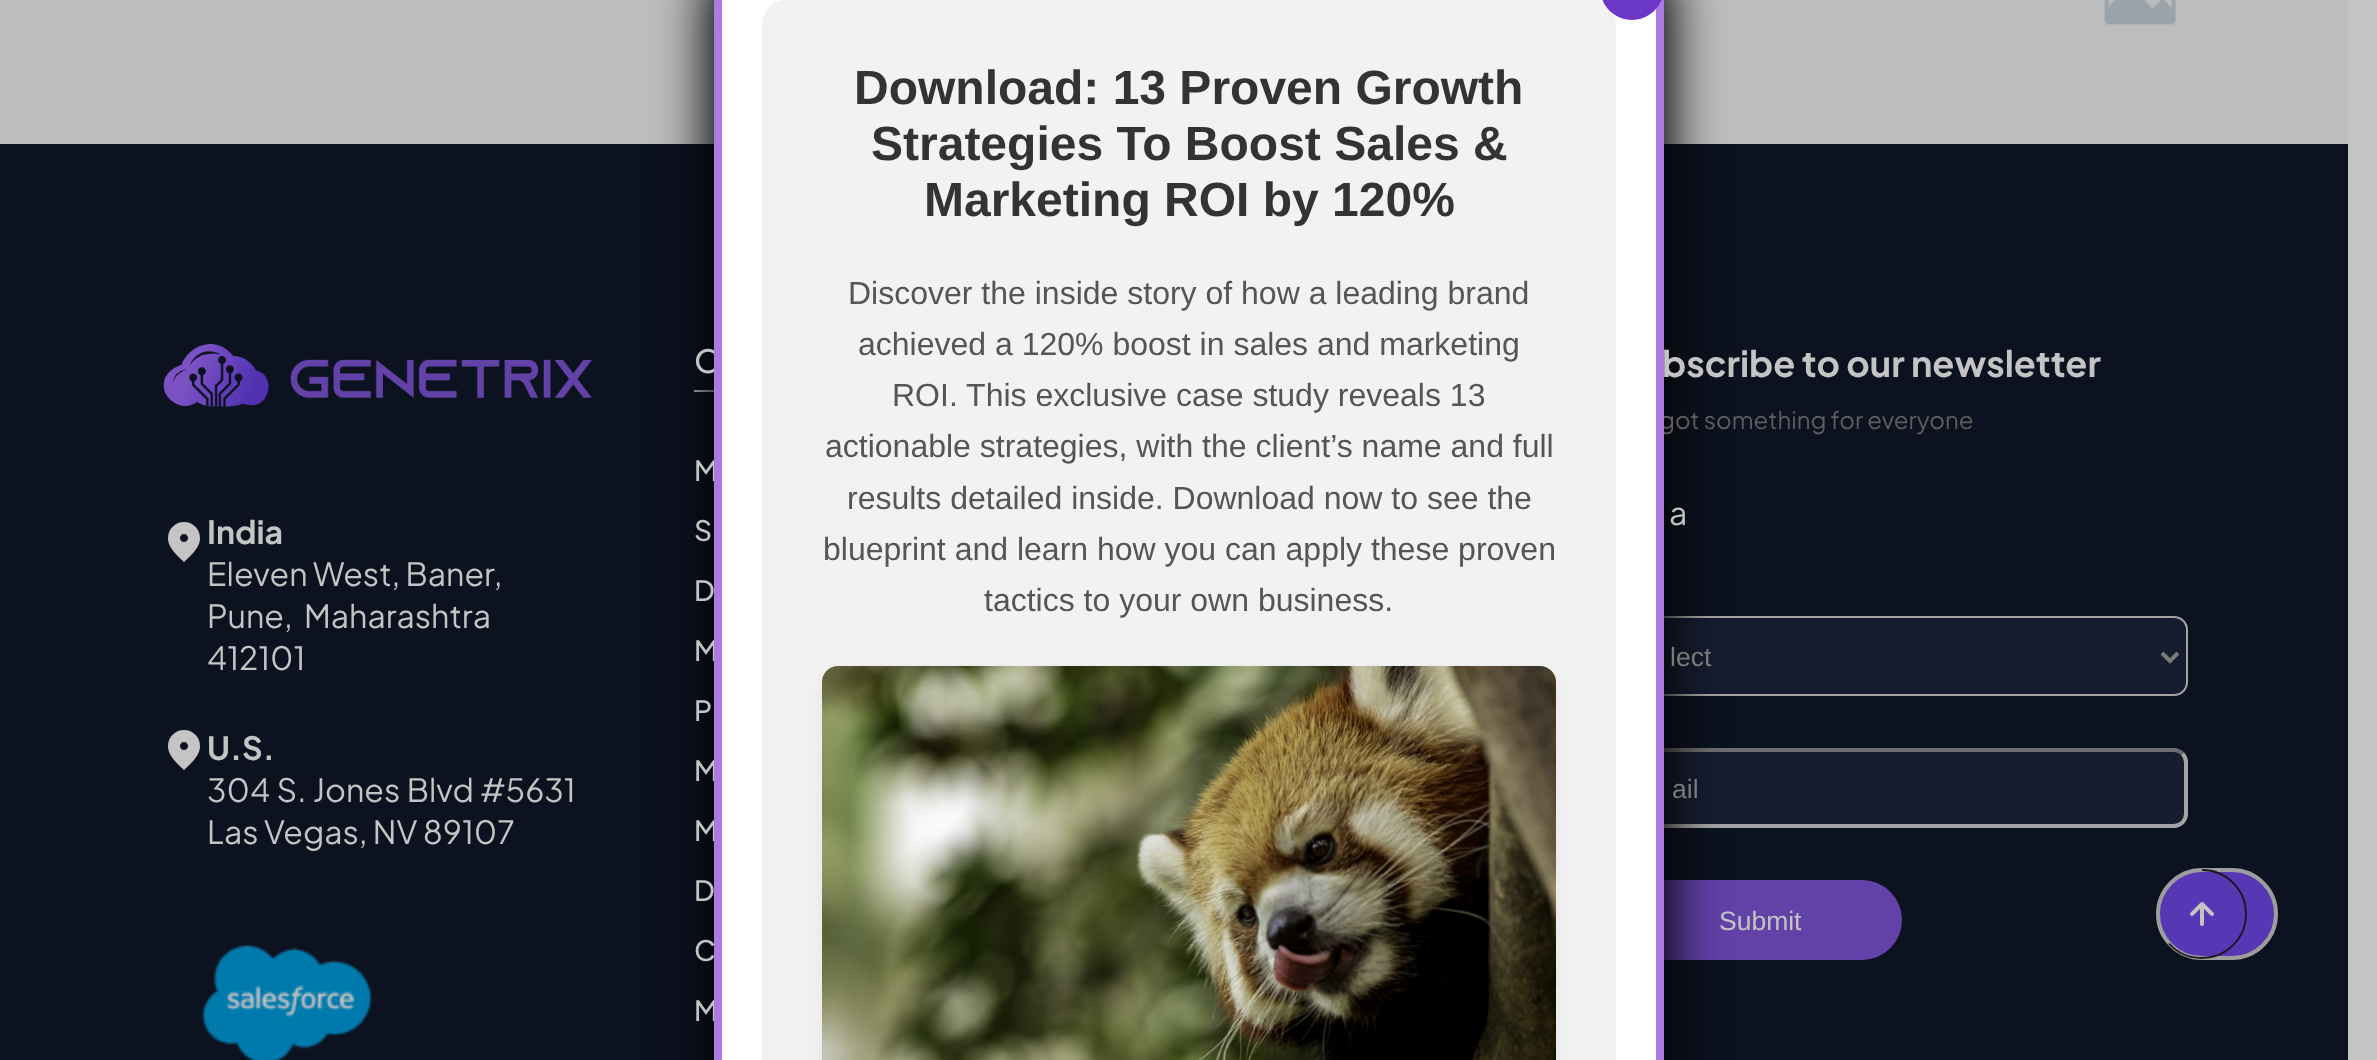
<?xml version="1.0" encoding="UTF-8"?>
<svg xmlns="http://www.w3.org/2000/svg" xmlns:xlink="http://www.w3.org/1999/xlink" width="2377" height="1060">
  <rect width="100%" height="100%" fill="#c4c4c4" />
  <rect width="2348" height="144" fill="#bbbdbf" />
  <image x="2104" y="0" width="72" height="25" xlink:href="image1.png" />
  <rect y="144" width="2348" height="916" fill="#0d1220" />
  <rect x="694" y="390" width="20" height="2" fill="#c4c4c4" />
  <rect x="1619" y="617" width="568" height="78" rx="13" fill="#161d31" stroke="#a4a4a4" stroke-width="2" />
  <rect x="1618" y="748" width="570" height="80" rx="14" fill="#161d31" />
  <path d="M 2182.5 753.5 c 2 2.5 3.5 5.5 3.5 8.5 v 52 c 0 3 -1.5 6 -3.5 8.5 c -2.5 2 -5.5 3.5 -8.5 3.5 h -542 c -3 0 -6 -1.5 -8.5 -3.5" fill="none" stroke="#a4a4a4" stroke-width="4" />
  <path d="M 1623.5 822.5 c -2 -2.5 -3.5 -5.5 -3.5 -8.5 v -52 c 0 -3 1.5 -6 3.5 -8.5 c 2.5 -2 5.5 -3.5 8.5 -3.5 h 542 c 3 0 6 1.5 8.5 3.5" fill="none" stroke="#6d6d6d" stroke-width="4" />
  <rect x="1618" y="880" width="284" height="80" rx="40" fill="#6242a7" />
  <rect x="706" y="-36" width="966" height="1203" rx="32" fill="#020202" filter="blur(25px)" />
  <image x="163" y="344" width="429" height="64" xlink:href="image3.png" />
  <image x="168" y="522" width="32" height="40" xlink:href="image4.png" />
  <image x="168" y="730" width="32" height="40" xlink:href="image5.png" />
  <image x="201" y="944" width="172" height="116" xlink:href="image6.png" />
  <path d="M 2162 653 l 8 8 l 8 -8" fill="none" stroke="#7a7a7a" stroke-width="4" />
  <rect x="2158" y="870" width="118" height="88" rx="44" fill="#5637b4" stroke="#9d9d9d" stroke-width="4" />
  <path d="M 2202 870 c 24.5 0 44 19.5 44 44 c 0 24.5 -19.5 44 -44 44 c -13 0 -25 -5.5 -33 -14.5" fill="none" stroke="#181920" stroke-width="1.8" />
  <image x="2190" y="902" width="24" height="24" xlink:href="image7.png" />
  <text x="207" y="544" style="font-family: Plus Jakarta Sans; font-size: 32px; font-weight: bold; fill: #c4c4c4">India</text>
  <text x="207" y="586" style="font-family: Plus Jakarta Sans; font-size: 32px; fill: #c4c4c4">Eleven West, Baner,</text>
  <text x="207" y="628" word-spacing="6" style="font-family: Plus Jakarta Sans; font-size: 32px; fill: #c4c4c4">Pune, Maharashtra</text>
  <text x="207" y="670" style="font-family: Plus Jakarta Sans; font-size: 32px; fill: #c4c4c4">412101</text>
  <text x="207" y="760" style="font-family: Plus Jakarta Sans; font-size: 32px; font-weight: bold; fill: #c4c4c4">U.S.</text>
  <text x="207" y="802" word-spacing="1" style="font-family: Plus Jakarta Sans; font-size: 32px; fill: #c4c4c4">304 S. Jones Blvd #5631</text>
  <text x="207" y="844" style="font-family: Plus Jakarta Sans; font-size: 32px; fill: #c4c4c4">Las Vegas, NV 89107</text>
  <text x="694" y="373" style="font-family: Plus Jakarta Sans; font-size: 32px; font-weight: 500; fill: #c4c4c4">O</text>
  <text x="694" y="481" style="font-family: Plus Jakarta Sans; font-size: 28px; font-weight: 500; fill: #c4c4c4">M</text>
  <text x="694" y="541" style="font-family: Plus Jakarta Sans; font-size: 28px; font-weight: 500; fill: #c4c4c4">S</text>
  <text x="694" y="601" style="font-family: Plus Jakarta Sans; font-size: 28px; font-weight: 500; fill: #c4c4c4">D</text>
  <text x="694" y="661" style="font-family: Plus Jakarta Sans; font-size: 28px; font-weight: 500; fill: #c4c4c4">M</text>
  <text x="694" y="721" style="font-family: Plus Jakarta Sans; font-size: 28px; font-weight: 500; fill: #c4c4c4">P</text>
  <text x="694" y="781" style="font-family: Plus Jakarta Sans; font-size: 28px; font-weight: 500; fill: #c4c4c4">M</text>
  <text x="694" y="841" style="font-family: Plus Jakarta Sans; font-size: 28px; font-weight: 500; fill: #c4c4c4">M</text>
  <text x="694" y="901" style="font-family: Plus Jakarta Sans; font-size: 28px; font-weight: 500; fill: #c4c4c4">D</text>
  <text x="694" y="961" style="font-family: Plus Jakarta Sans; font-size: 28px; font-weight: 500; fill: #c4c4c4">C</text>
  <text x="694" y="1021" style="font-family: Plus Jakarta Sans; font-size: 28px; font-weight: 500; fill: #c4c4c4">M</text>
  <text x="1662" y="377" style="font-family: Plus Jakarta Sans; font-size: 36px; font-weight: bold; fill: #c4c4c4">bscribe to our newsletter</text>
  <text x="1659" y="429" style="font-family: Plus Jakarta Sans; font-size: 24px; fill: #5e5e5e">got something for everyone</text>
  <rect x="718" y="-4" width="942" height="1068" fill="#ffffff" stroke="#ae7ae2" stroke-width="8" />
  <path d="M 786 0 h 806 c 13.5 0 24 10.5 24 24 v 1036 h -854 v -1036 c 0 -13.5 10.5 -24 24 -24 z" fill="#f2f2f2" />
  <path d="M 1600 0 h 64 v -12 c 0 17.5 -14.5 32 -32 32 c -17.5 0 -32 -14.5 -32 -32 z" fill="#6a37c7" />
  <rect x="822" y="674" width="734" height="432" rx="16" fill="#000000" fill-opacity="0.05" filter="blur(10px)" />
  <image x="822" y="666" width="734" height="394" xlink:href="image2.png" />
  <text x="984" y="611" style="font-family: Liberation Sans; font-size: 32px; fill: #555555">tactics to your own business.</text>
  <text x="823" y="560" style="font-family: Liberation Sans; font-size: 32px; fill: #555555">blueprint and learn how you can apply these proven</text>
  <text x="847" y="509" style="font-family: Liberation Sans; font-size: 32px; fill: #555555">results detailed inside. Download now to see the</text>
  <text x="825" y="457" style="font-family: Liberation Sans; font-size: 32px; fill: #555555">actionable strategies, with the client’s name and full</text>
  <text x="892" y="406" style="font-family: Liberation Sans; font-size: 32px; fill: #555555">ROI. This exclusive case study reveals 13</text>
  <text x="858" y="355" style="font-family: Liberation Sans; font-size: 32px; fill: #555555">achieved a 120% boost in sales and marketing</text>
  <text x="848" y="304" style="font-family: Liberation Sans; font-size: 32px; fill: #555555">Discover the inside story of how a leading brand</text>
  <text x="924" y="216" style="font-family: Liberation Sans; font-size: 48px; font-weight: bold; fill: #333333">Marketing ROI by 120%</text>
  <text x="871" y="160" style="font-family: Liberation Sans; font-size: 48px; font-weight: bold; fill: #333333">Strategies To Boost Sales &amp;</text>
  <text x="854" y="104" style="font-family: Liberation Sans; font-size: 48px; font-weight: bold; fill: #333333">Download: 13 Proven Growth</text>
  <text x="1669" y="525" style="font-family: Plus Jakarta Sans; font-size: 32px; fill: #c4c4c4">a</text>
  <text x="1670" y="666" style="font-family: Liberation Sans; font-size: 26.5px; fill: #7a7a7a">lect</text>
  <text x="1672" y="798" style="font-family: Liberation Sans; font-size: 26.5px; fill: #7a7a7a">ail</text>
  <text x="1719" y="930" style="font-family: Liberation Sans; font-size: 26.5px; fill: #c4c4c4">Submit</text>
</svg>
